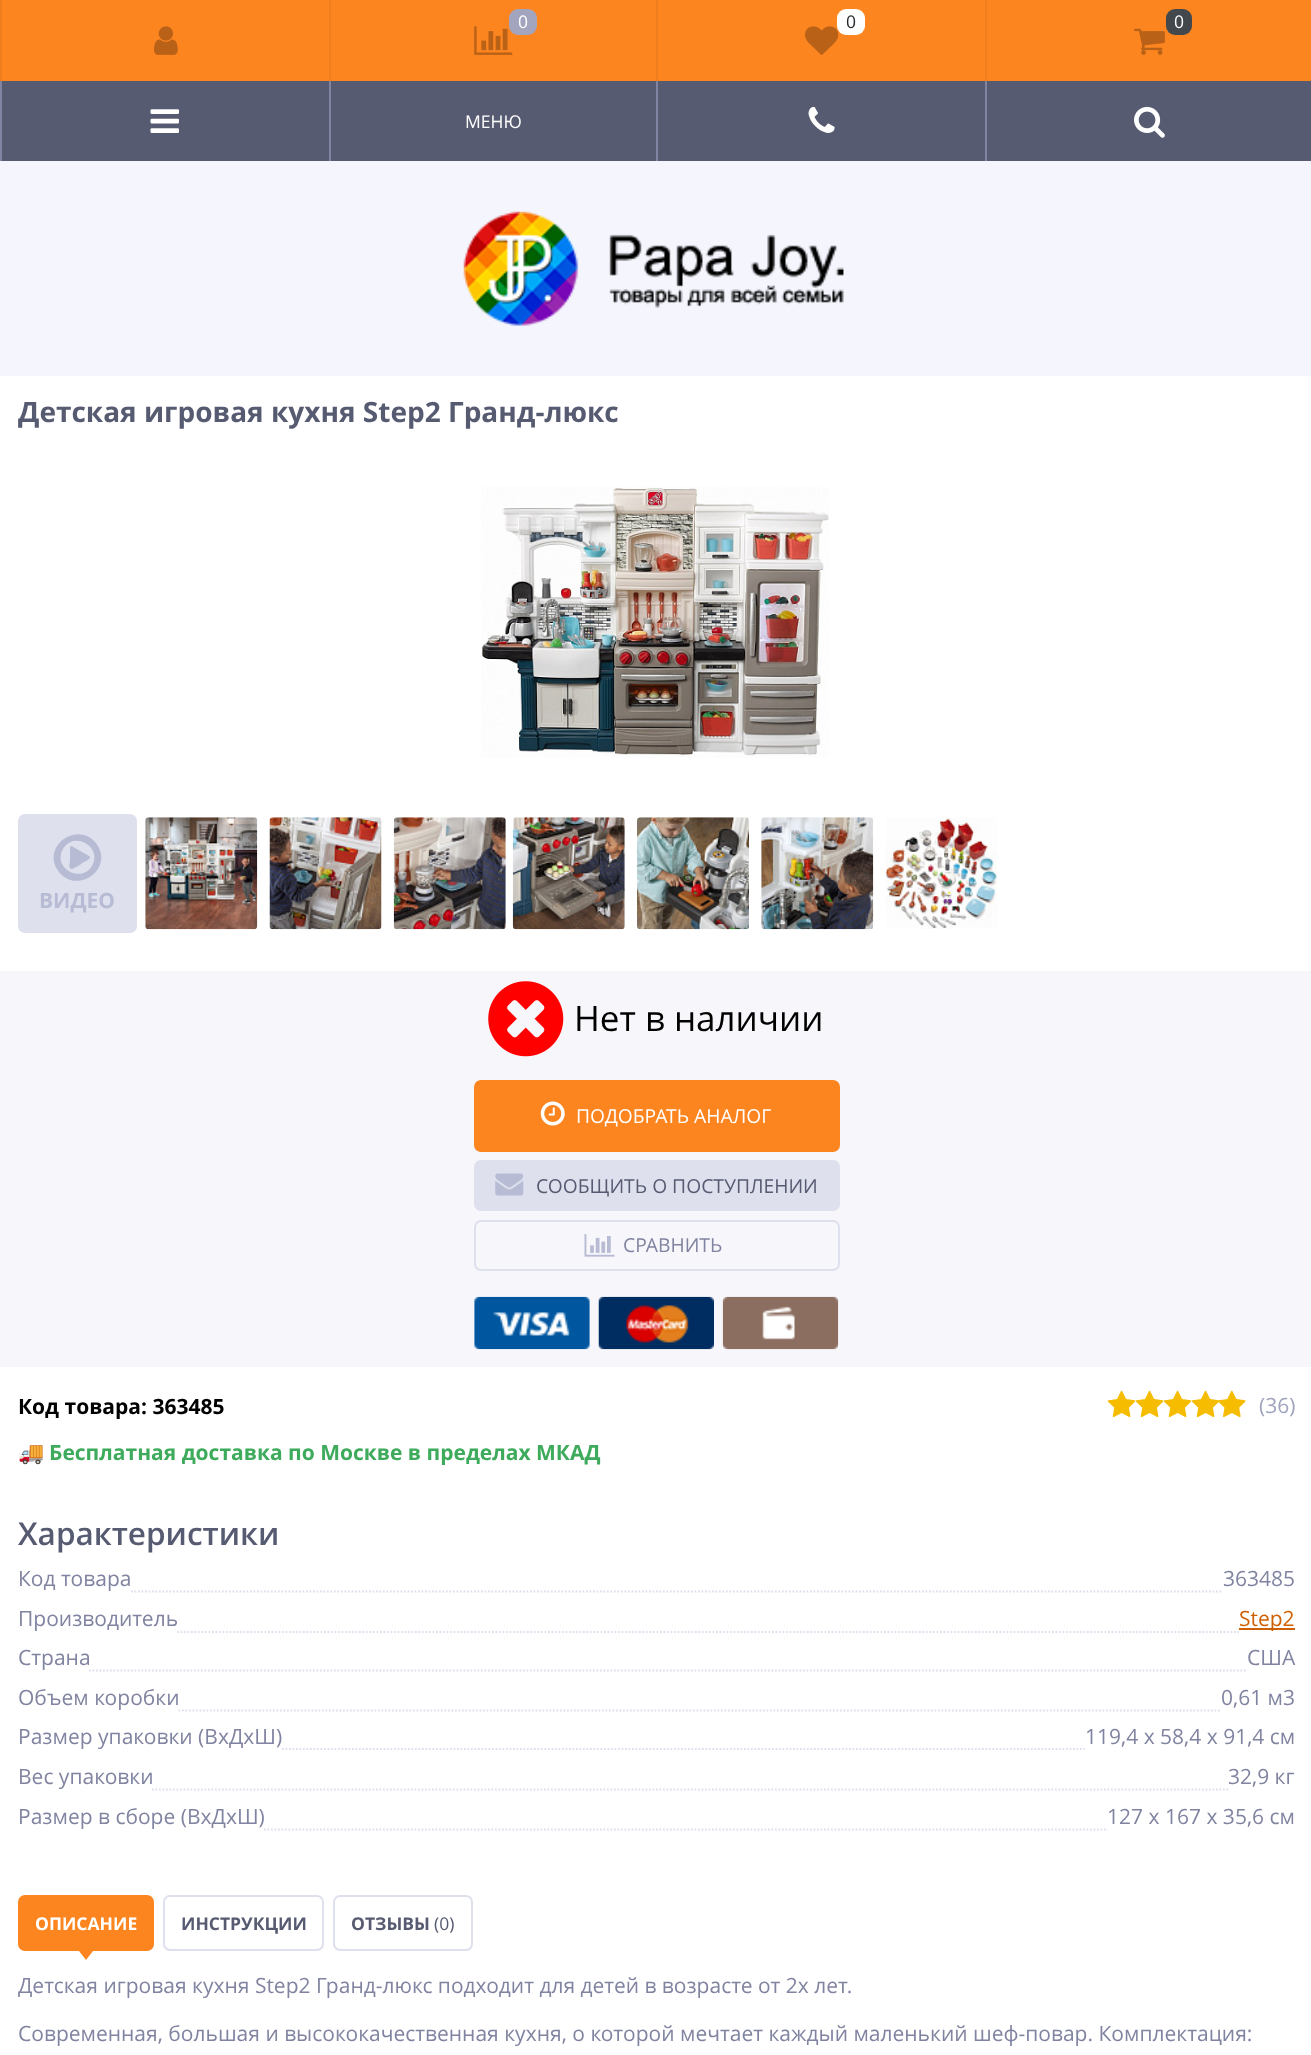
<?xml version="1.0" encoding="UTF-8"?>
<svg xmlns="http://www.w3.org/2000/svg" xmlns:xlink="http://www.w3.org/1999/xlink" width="1311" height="2055">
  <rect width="100%" height="100%" fill="#f4f5fd" />
  <rect x="2" width="1309" height="81" fill="#fd8520" />
  <rect width="2" height="81" fill="#f07e1e" />
  <rect x="329" width="2" height="81" fill="#f07e1e" />
  <image x="154" y="26" width="24" height="29" xlink:href="image1.png" />
  <rect x="656" width="2" height="81" fill="#f07e1e" />
  <image x="474" y="26" width="39" height="29" xlink:href="image2.png" />
  <rect x="509" y="9" width="28" height="26" rx="9" fill="#a3a5be" />
  <rect x="985" width="2" height="81" fill="#f07e1e" />
  <image x="805" y="26" width="34" height="29" xlink:href="image3.png" />
  <rect x="837" y="9" width="28" height="26" rx="9" fill="#ffffff" />
  <rect x="1166" y="9" width="26" height="26" rx="9" fill="#43484d" />
  <image x="1134" y="28" width="31" height="27" xlink:href="image4.png" />
  <rect x="2" y="81" width="1309" height="80" fill="#575b71" />
  <rect y="81" width="2" height="80" fill="#8184a1" />
  <image x="150" y="109" width="29" height="24" xlink:href="image5.png" />
  <rect x="329" y="81" width="2" height="80" fill="#8184a1" />
  <rect x="656" y="81" width="2" height="80" fill="#8184a1" />
  <image x="808" y="106" width="27" height="27" xlink:href="image6.png" />
  <rect x="985" y="81" width="2" height="80" fill="#8184a1" />
  <image x="1134" y="106" width="31" height="32" xlink:href="image7.png" />
  <image x="463" y="211" width="381" height="115" xlink:href="image8.png" />
  <rect y="376" width="1311" height="1679" fill="#ffffff" />
  <image x="481" y="486" width="348" height="272" xlink:href="image9.png" />
  <rect x="20" y="816" width="115" height="115" rx="5" fill="#dee0ee" stroke="#dee0ee" stroke-width="4" />
  <path d="M 89 856 c 4 2 -5 6 -5 6 c -2 1 -11 8 -13 7 c -3 -2 -1 -6 -1 -8 v -10 c 0 -6 0 -6 5 -3 z m 3 10 c 11 -19 -18 -36 -29 -17 c -11 19 18 35 29 17 z m 6 -20 c 15 26 -25 50 -41 23 c -15 -26 25 -50 41 -23 z" fill="#b7bbd3" />
  <image x="145" y="817" width="113" height="113" xlink:href="image10.png" />
  <image x="269" y="817" width="113" height="113" xlink:href="image11.png" />
  <image x="393" y="817" width="113" height="113" xlink:href="image12.png" />
  <image x="512" y="817" width="113" height="113" xlink:href="image13.png" />
  <image x="637" y="817" width="112" height="113" xlink:href="image14.png" />
  <image x="761" y="817" width="113" height="113" xlink:href="image15.png" />
  <image x="885" y="817" width="112" height="112" xlink:href="image16.png" />
  <rect y="971" width="1311" height="396" fill="#f6f6fb" />
  <image x="488" y="981" width="76" height="76" xlink:href="image17.png" />
  <rect x="474" y="1080" width="366" height="72" rx="7" fill="#fd8520" />
  <image x="540" y="1101" width="25" height="25" xlink:href="image18.png" />
  <rect x="474" y="1160" width="366" height="51" rx="7" fill="#dee0ee" />
  <image x="495" y="1173" width="29" height="23" xlink:href="image19.png" />
  <rect x="475" y="1221" width="364" height="49" rx="6" fill="none" stroke="#dee0ee" stroke-width="2" />
  <image x="584" y="1234" width="31" height="23" xlink:href="image20.png" />
  <image x="474" y="1296" width="116" height="54" xlink:href="image21.png" />
  <image x="598" y="1296" width="116" height="54" xlink:href="image22.png" />
  <image x="722" y="1296" width="117" height="54" xlink:href="image23.png" />
  <image x="1107" y="1390" width="29" height="28" xlink:href="image24.png" />
  <image x="1135" y="1390" width="29" height="28" xlink:href="image25.png" />
  <image x="1163" y="1390" width="29" height="28" xlink:href="image25.png" />
  <image x="1191" y="1390" width="29" height="28" xlink:href="image25.png" />
  <image x="1218" y="1390" width="28" height="28" xlink:href="image26.png" />
  <path d="M 131 1591.5 h 1092" fill="none" stroke="#dee0ee" stroke-width="1.8" stroke-dasharray="1.75 1.75" />
  <path d="M 177 1632 h 1062" fill="none" stroke="#dee0ee" stroke-width="1.8" stroke-dasharray="1.75 1.75" />
  <rect x="1239" y="1628" width="56" height="2" fill="#cf5f02" />
  <path d="M 89 1670.5 h 1157" fill="none" stroke="#dee0ee" stroke-width="1.8" stroke-dasharray="1.75 1.75" />
  <path d="M 178.5 1710.5 h 1043" fill="none" stroke="#dee0ee" stroke-width="1.8" stroke-dasharray="1.75 1.75" />
  <path d="M 282 1749 h 803" fill="none" stroke="#dee0ee" stroke-width="1.8" stroke-dasharray="1.75 1.75" />
  <path d="M 152 1789.5 h 1076.5" fill="none" stroke="#dee0ee" stroke-width="1.8" stroke-dasharray="1.75 1.75" />
  <path d="M 264 1829.5 h 844" fill="none" stroke="#dee0ee" stroke-width="1.8" stroke-dasharray="1.75 1.75" />
  <rect x="20" y="1897" width="132" height="52" rx="5" fill="#fd8520" stroke="#fd8520" stroke-width="4" />
  <path d="M 79 1951 h 14 l -7 9 z" fill="#fd8520" />
  <rect x="164" y="1896" width="159" height="54" rx="6" fill="none" stroke="#dee0ee" stroke-width="2" />
  <rect x="334" y="1896" width="138" height="54" rx="6" fill="none" stroke="#dee0ee" stroke-width="2" />
  <text x="518" y="28" style="font-family: Open Sans; font-size: 17.5px; fill: #ffffff">0</text>
  <text x="846" y="28" style="font-family: Open Sans; font-size: 17.5px; fill: #23262a">0</text>
  <text x="1174" y="28" style="font-family: Open Sans; font-size: 17.5px; fill: #ffffff">0</text>
  <text x="465" y="128" style="font-family: Open Sans; font-size: 17.5px; fill: #ffffff">МЕНЮ</text>
  <text x="18" y="422" style="font-family: Open Sans; font-size: 28px; font-weight: bold; fill: #575b71">Детская игровая кухня Step2 Гранд-люкс</text>
  <text x="39" y="908" style="font-family: Open Sans; font-size: 21px; font-weight: bold; fill: #b7bbd3">ВИДЕО</text>
  <text x="574" y="1031" style="font-family: Open Sans; font-size: 35px; fill: #000000">Нет в наличии</text>
  <text x="576" y="1123" style="font-family: Open Sans; font-size: 19.25px; fill: #ffffff">ПОДОБРАТЬ АНАЛОГ</text>
  <text x="536" y="1193" style="font-family: Open Sans; font-size: 19.25px; fill: #575b71">СООБЩИТЬ О ПОСТУПЛЕНИИ</text>
  <text x="623" y="1252" style="font-family: Open Sans; font-size: 19.25px; fill: #8184a1">СРАВНИТЬ</text>
  <text x="18" y="1414" style="font-family: Open Sans; font-size: 21px; font-weight: bold; fill: #000000">Код товара: 363485</text>
  <text x="1259" y="1413" style="font-family: Open Sans; font-size: 21px; fill: #a0a4bc">(36)</text>
  <text x="18" y="1460" style="font-family: Noto Color Emoji; font-size: 21px; font-weight: bold; fill: #3eab5c">🚚</text>
  <text x="49" y="1460" style="font-family: Open Sans; font-size: 21px; font-weight: bold; fill: #3eab5c">Бесплатная доставка по Москве в пределах МКАД</text>
  <text x="18" y="1545" style="font-family: Open Sans; font-size: 31.5px; font-weight: 600; fill: #575b71">Характеристики</text>
  <text x="18" y="1586" style="font-family: Open Sans; font-size: 21px; fill: #8184a1">Код товара</text>
  <text x="1223" y="1586" style="font-family: Open Sans; font-size: 21px; fill: #8184a1">363485</text>
  <text x="18" y="1626" style="font-family: Open Sans; font-size: 21px; fill: #8184a1">Производитель</text>
  <text x="1239" y="1626" style="font-family: Open Sans; font-size: 21px; fill: #cf5f02">Step2</text>
  <text x="18" y="1665" style="font-family: Open Sans; font-size: 21px; fill: #8184a1">Страна</text>
  <text x="1247" y="1665" style="font-family: Open Sans; font-size: 21px; fill: #8184a1">США</text>
  <text x="18" y="1705" style="font-family: Open Sans; font-size: 21px; fill: #8184a1">Объем коробки</text>
  <text x="1221" y="1705" style="font-family: Open Sans; font-size: 21px; fill: #8184a1">0,61 м3</text>
  <text x="18" y="1744" style="font-family: Open Sans; font-size: 21px; fill: #8184a1">Размер упаковки (ВхДхШ)</text>
  <text x="1085" y="1744" style="font-family: Open Sans; font-size: 21px; fill: #8184a1">119,4 x 58,4 x 91,4 см</text>
  <text x="18" y="1784" style="font-family: Open Sans; font-size: 21px; fill: #8184a1">Вес упаковки</text>
  <text x="1228" y="1784" style="font-family: Open Sans; font-size: 21px; fill: #8184a1">32,9 кг</text>
  <text x="18" y="1824" style="font-family: Open Sans; font-size: 21px; fill: #8184a1">Размер в сборе (ВхДхШ)</text>
  <text x="1107" y="1824" style="font-family: Open Sans; font-size: 21px; fill: #8184a1">127 x 167 x 35,6 см</text>
  <text x="35" y="1930" style="font-family: Open Sans; font-size: 17.5px; font-weight: bold; fill: #ffffff">ОПИСАНИЕ</text>
  <text x="181" y="1930" style="font-family: Open Sans; font-size: 17.5px; font-weight: bold; fill: #575b71">ИНСТРУКЦИИ</text>
  <text x="351" y="1930" style="font-family: Open Sans; font-size: 17.5px; font-weight: bold; fill: #575b71">ОТЗЫВЫ</text>
  <text x="434" y="1930" style="font-family: Open Sans; font-size: 17.5px; fill: #575b71">(0)</text>
  <text x="18" y="1993" style="font-family: Open Sans; font-size: 21px; fill: #8184a1">Детская игровая кухня Step2 Гранд-люкс подходит для детей в возрасте от 2х лет.</text>
  <text x="18" y="2041" style="font-family: Open Sans; font-size: 21px; fill: #8184a1">Современная, большая и высококачественная кухня, о которой мечтает каждый маленький шеф-повар. Комплектация:</text>
</svg>
